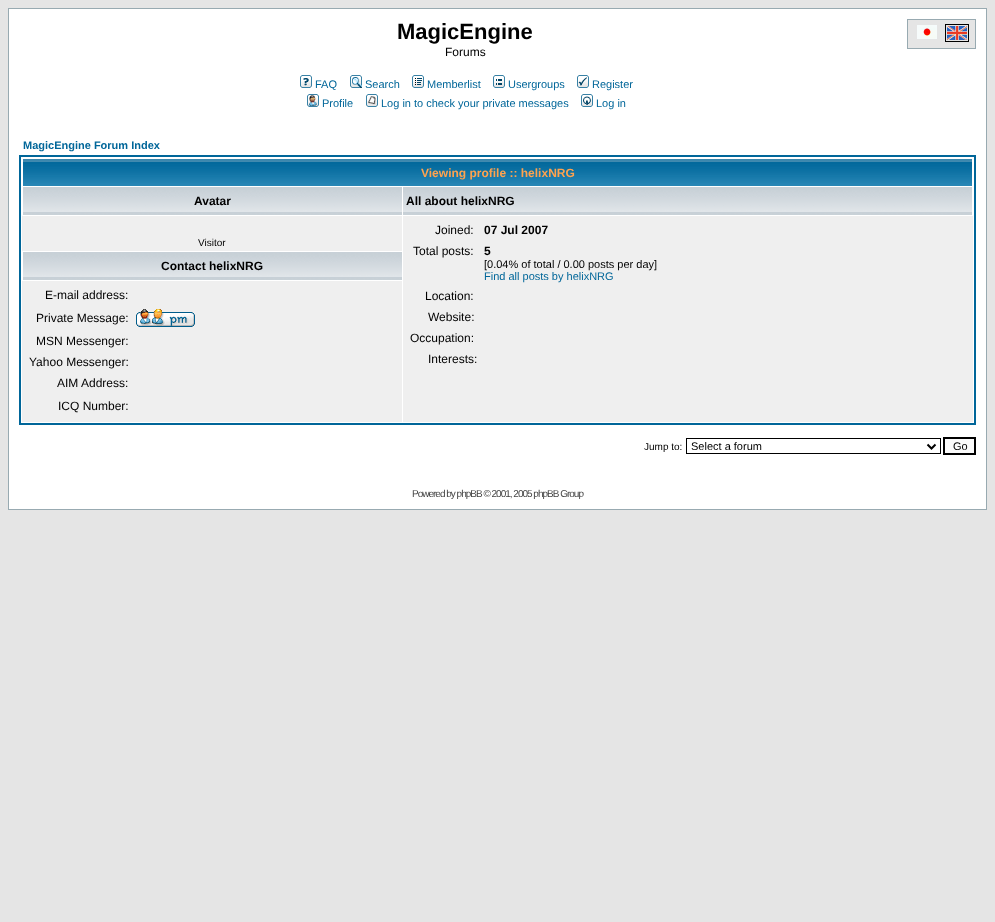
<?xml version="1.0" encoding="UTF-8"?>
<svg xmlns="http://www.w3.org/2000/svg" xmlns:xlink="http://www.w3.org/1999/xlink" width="995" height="922">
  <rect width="100%" height="100%" fill="#e5e5e5" />
  <rect x="8.5" y="8.5" width="978" height="501" fill="#ffffff" stroke="#98aab1" />
  <image x="300" y="75" width="12" height="13" xlink:href="image1.png" />
  <image x="350" y="75" width="12" height="13" xlink:href="image2.png" />
  <image x="412" y="75" width="12" height="13" xlink:href="image3.png" />
  <image x="493" y="75" width="12" height="13" xlink:href="image4.png" />
  <image x="577" y="75" width="12" height="13" xlink:href="image5.png" />
  <image x="307" y="94" width="12" height="13" xlink:href="image6.png" />
  <image x="366" y="94" width="12" height="13" xlink:href="image7.png" />
  <image x="581" y="94" width="12" height="13" xlink:href="image8.png" />
  <rect x="907.5" y="19.5" width="68" height="29" fill="#e5e5e5" stroke="#98aab1" />
  <image x="917" y="25" width="20" height="14" xlink:href="image9.png" />
  <rect x="945.5" y="24.5" width="23" height="17" fill="none" stroke="#000000" />
  <image x="947" y="26" width="20" height="14" xlink:href="image10.png" />
  <rect x="20" y="156" width="955" height="268" fill="none" stroke="#006699" stroke-width="2" />
  <image x="23" y="159" width="949" height="27" xlink:href="image11.png" />
  <image x="23" y="187" width="379" height="28" xlink:href="image12.png" />
  <image x="403" y="187" width="569" height="28" xlink:href="image13.png" />
  <rect x="22" y="216" width="380" height="35" fill="#efefef" />
  <rect x="403" y="216" width="570" height="206" fill="#efefef" />
  <image x="23" y="252" width="379" height="28" xlink:href="image12.png" />
  <rect x="22" y="281" width="380" height="141" fill="#efefef" />
  <image x="136" y="309" width="59" height="18" xlink:href="image14.png" />
  <rect x="686.5" y="438.5" width="254" height="15" fill="none" stroke="#000000" />
  <path d="M 927.5 444.5 l 4 4 l 4 -4" fill="none" stroke="#000000" stroke-width="2" />
  <rect x="944" y="438" width="31" height="16" fill="#fafafa" stroke="#000000" stroke-width="2" />
  <text x="397" y="39" style="font-family: Liberation Sans; font-size: 22px; font-weight: bold; fill: #000000">MagicEngine</text>
  <text x="445" y="56" style="font-family: Liberation Sans; font-size: 12px; fill: #000000">Forums</text>
  <text x="315" y="88" style="font-family: Liberation Sans; font-size: 11px; fill: #006699">FAQ</text>
  <text x="365" y="88" style="font-family: Liberation Sans; font-size: 11px; fill: #006699">Search</text>
  <text x="427" y="88" style="font-family: Liberation Sans; font-size: 11px; fill: #006699">Memberlist</text>
  <text x="508" y="88" style="font-family: Liberation Sans; font-size: 11px; fill: #006699">Usergroups</text>
  <text x="592" y="88" style="font-family: Liberation Sans; font-size: 11px; fill: #006699">Register</text>
  <text x="322" y="107" style="font-family: Liberation Sans; font-size: 11px; fill: #006699">Profile</text>
  <text x="381" y="107" style="font-family: Liberation Sans; font-size: 11px; fill: #006699">Log in to check your private messages</text>
  <text x="596" y="107" style="font-family: Liberation Sans; font-size: 11px; fill: #006699">Log in</text>
  <text x="23" y="149" style="font-family: Liberation Sans; font-size: 11px; font-weight: bold; fill: #006699">MagicEngine Forum Index</text>
  <text x="421" y="177" style="font-family: Liberation Sans; font-size: 12px; font-weight: bold; fill: #ffa34f">Viewing profile :: helixNRG</text>
  <text x="194" y="205" style="font-family: Liberation Sans; font-size: 12px; font-weight: bold; fill: #000000">Avatar</text>
  <text x="406" y="205" style="font-family: Liberation Sans; font-size: 12px; font-weight: bold; fill: #000000">All about helixNRG</text>
  <text x="198" y="246" style="font-family: Liberation Sans; font-size: 10px; fill: #000000">Visitor</text>
  <text x="435" y="234" style="font-family: Liberation Sans; font-size: 12px; fill: #000000">Joined:</text>
  <text x="484" y="234" style="font-family: Liberation Sans; font-size: 12px; font-weight: bold; fill: #000000">07 Jul 2007</text>
  <text x="413" y="255" style="font-family: Liberation Sans; font-size: 12px; fill: #000000">Total posts:</text>
  <text x="484" y="255" style="font-family: Liberation Sans; font-size: 12px; font-weight: bold; fill: #000000">5</text>
  <text x="484" y="268" style="font-family: Liberation Sans; font-size: 11px; fill: #000000">[0.04% of total / 0.00 posts per day]</text>
  <text x="484" y="280" style="font-family: Liberation Sans; font-size: 11px; fill: #006699">Find all posts by helixNRG</text>
  <text x="425" y="300" style="font-family: Liberation Sans; font-size: 12px; fill: #000000">Location:</text>
  <text x="428" y="321" style="font-family: Liberation Sans; font-size: 12px; fill: #000000">Website:</text>
  <text x="410" y="342" style="font-family: Liberation Sans; font-size: 12px; fill: #000000">Occupation:</text>
  <text x="428" y="363" style="font-family: Liberation Sans; font-size: 12px; fill: #000000">Interests:</text>
  <text x="161" y="270" style="font-family: Liberation Sans; font-size: 12px; font-weight: bold; fill: #000000">Contact helixNRG</text>
  <text x="45" y="299" style="font-family: Liberation Sans; font-size: 12px; fill: #000000">E-mail address:</text>
  <text x="36" y="322" style="font-family: Liberation Sans; font-size: 12px; fill: #000000">Private Message:</text>
  <text x="36" y="345" style="font-family: Liberation Sans; font-size: 12px; fill: #000000">MSN Messenger:</text>
  <text x="29" y="366" style="font-family: Liberation Sans; font-size: 12px; fill: #000000">Yahoo Messenger:</text>
  <text x="57" y="387" style="font-family: Liberation Sans; font-size: 12px; fill: #000000">AIM Address:</text>
  <text x="58" y="410" style="font-family: Liberation Sans; font-size: 12px; fill: #000000">ICQ Number:</text>
  <text x="644" y="450" style="font-family: Liberation Sans; font-size: 10px; fill: #000000">Jump to:</text>
  <text x="691" y="450" style="font-family: Liberation Sans; font-size: 11px; fill: #000000">Select a forum</text>
  <text x="953" y="450" style="font-family: Liberation Sans; font-size: 11px; fill: #000000">Go</text>
  <text x="412" y="497" style="font-family: Liberation Sans; font-size: 10px; letter-spacing: -1px; fill: #444444">Powered by phpBB © 2001, 2005 phpBB Group</text>
</svg>
